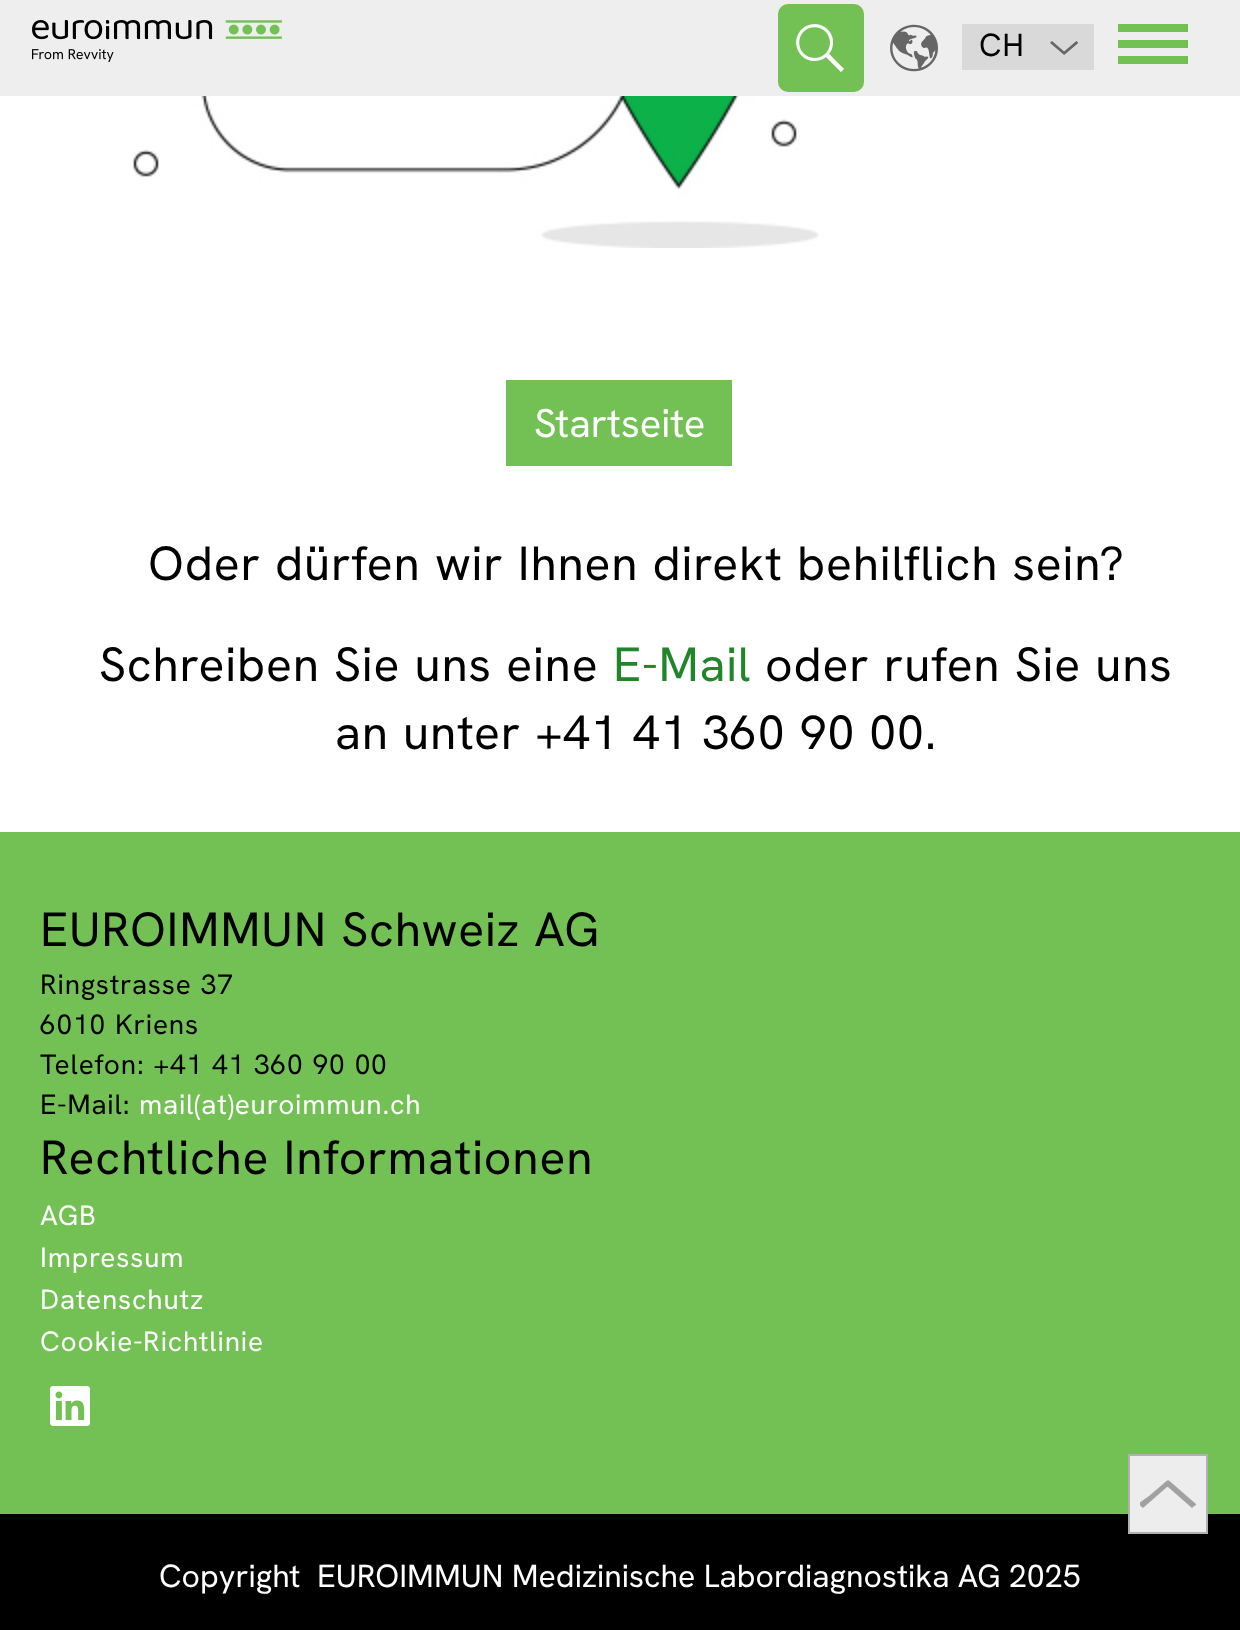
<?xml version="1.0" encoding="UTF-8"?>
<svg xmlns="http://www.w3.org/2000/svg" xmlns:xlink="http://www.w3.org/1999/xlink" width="1240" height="1630">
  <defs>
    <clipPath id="clip1"><rect x="1140" y="1478" width="56" height="32" /></clipPath>
  </defs>
  <rect width="100%" height="100%" fill="#ffffff" />
  <rect width="1240" height="96" fill="#eeeeee" />
  <image x="32" y="20" width="250" height="42" xlink:href="image1.png" />
  <rect x="778" y="4" width="86" height="88" rx="10" fill="#73c054" />
  <image x="796" y="24" width="48" height="48" xlink:href="image2.png" />
  <image x="890" y="24" width="48" height="48" xlink:href="image3.png" />
  <rect x="962" y="24" width="132" height="46" fill="#d9d9d9" />
  <image x="1050" y="41" width="28" height="14" xlink:href="image4.png" />
  <rect x="1118" y="24" width="70" height="8" fill="#73c054" />
  <rect x="1118" y="40" width="70" height="8" fill="#73c054" />
  <rect x="1118" y="56" width="70" height="8" fill="#73c054" />
  <image x="133" y="96" width="686" height="152" xlink:href="image5.png" />
  <rect x="506" y="380" width="226" height="86" fill="#73c054" />
  <rect y="832" width="1240" height="682" fill="#73c054" />
  <image x="50" y="1386" width="40" height="40" xlink:href="image6.png" />
  <rect y="1514" width="1240" height="116" fill="#000000" />
  <rect x="1129" y="1455" width="78" height="78" fill="#ededed" stroke="#b0b0b0" stroke-width="2" />
  <g clip-path="url(#clip1)">
    <path d="M 1196 1504 l -23 -20 c -6 -5 -4 -5 -10 0 l -14 12 c -10 8 -13 6 -6 12 l 24 -21 c 0 0 1 0 1 0 l 24 21 c 0 -1 5 -3 4 -4 z" fill="#a1a1a1" />
  </g>
  <text x="979" y="56" style="font-family: Hanken Grotesk; font-size: 32px; letter-spacing: 0.8px; fill: #000000">CH</text>
  <text x="534" y="437" style="font-family: Hanken Grotesk; font-size: 40px; fill: #ffffff">Startseite</text>
  <text x="148" y="580" word-spacing="1" style="font-family: Hanken Grotesk; font-size: 48px; letter-spacing: 0.8px; fill: #000000">Oder dürfen wir Ihnen direkt behilflich sein?</text>
  <text x="99" y="681" word-spacing="1" style="font-family: Hanken Grotesk; font-size: 48px; letter-spacing: 0.8px; fill: #000000">Schreiben Sie uns eine</text>
  <text x="613" y="681" style="font-family: Hanken Grotesk; font-size: 48px; letter-spacing: 0.8px; fill: #218529">E-Mail</text>
  <text x="765" y="681" word-spacing="1" style="font-family: Hanken Grotesk; font-size: 48px; letter-spacing: 0.8px; fill: #000000">oder rufen Sie uns</text>
  <text x="335" y="749" word-spacing="1" style="font-family: Hanken Grotesk; font-size: 48px; letter-spacing: 0.8px; fill: #000000">an unter +41 41 360 90 00.</text>
  <text x="40" y="946" word-spacing="1" style="font-family: Hanken Grotesk; font-size: 48px; letter-spacing: 0.8px; fill: #000000">EUROIMMUN Schweiz AG</text>
  <text x="40" y="994" word-spacing="1" style="font-family: Hanken Grotesk; font-size: 28px; letter-spacing: 0.8px; fill: #000000">Ringstrasse 37</text>
  <text x="40" y="1034" word-spacing="1" style="font-family: Hanken Grotesk; font-size: 28px; letter-spacing: 0.8px; fill: #000000">6010 Kriens</text>
  <text x="40" y="1074" word-spacing="1" style="font-family: Hanken Grotesk; font-size: 28px; letter-spacing: 0.8px; fill: #000000">Telefon: +41 41 360 90 00</text>
  <text x="40" y="1114" style="font-family: Hanken Grotesk; font-size: 28px; letter-spacing: 0.8px; fill: #000000">E-Mail:</text>
  <text x="139" y="1114" style="font-family: Hanken Grotesk; font-size: 28px; letter-spacing: 0.8px; fill: #ffffff">mail(at)euroimmun.ch</text>
  <text x="40" y="1174" word-spacing="1" style="font-family: Hanken Grotesk; font-size: 48px; letter-spacing: 0.8px; fill: #000000">Rechtliche Informationen</text>
  <text x="40" y="1225" style="font-family: Hanken Grotesk; font-size: 28px; letter-spacing: 0.8px; fill: #ffffff">AGB</text>
  <text x="40" y="1267" style="font-family: Hanken Grotesk; font-size: 28px; letter-spacing: 0.8px; fill: #ffffff">Impressum</text>
  <text x="40" y="1309" style="font-family: Hanken Grotesk; font-size: 28px; letter-spacing: 0.8px; fill: #ffffff">Datenschutz</text>
  <text x="40" y="1351" style="font-family: Hanken Grotesk; font-size: 28px; letter-spacing: 0.8px; fill: #ffffff">Cookie-Richtlinie</text>
  <text x="159" y="1587" style="font-family: Hanken Grotesk; font-size: 32px; fill: #ffffff" xml:space="preserve">Copyright  EUROIMMUN Medizinische Labordiagnostika AG 2025</text>
</svg>
